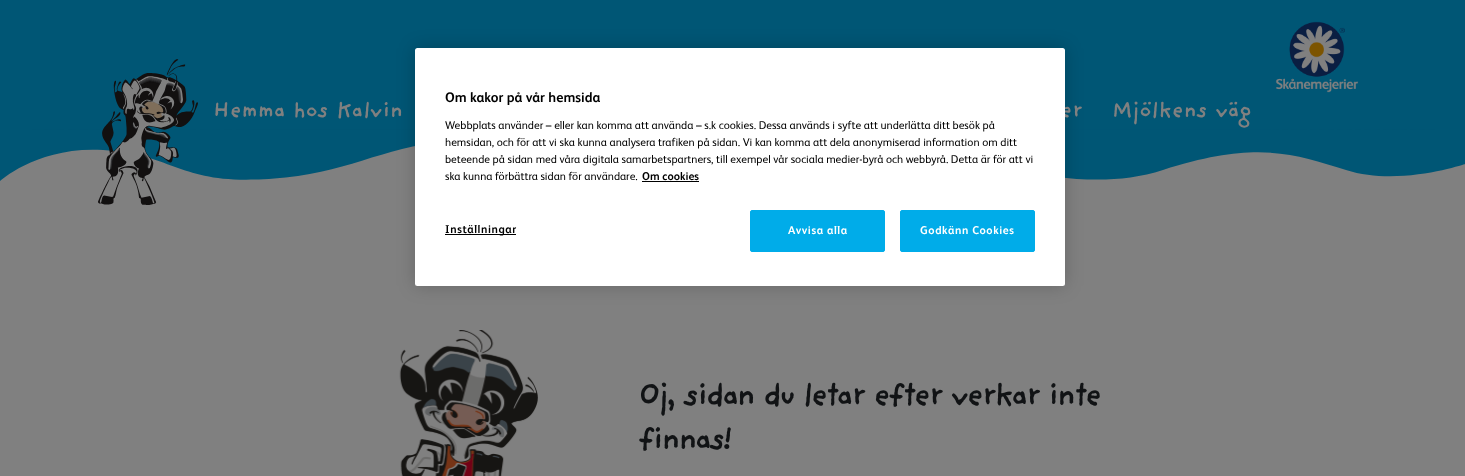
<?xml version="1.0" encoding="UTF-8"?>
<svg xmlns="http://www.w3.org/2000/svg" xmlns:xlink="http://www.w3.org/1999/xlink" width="1465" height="476">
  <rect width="100%" height="100%" fill="#808080" />
  <rect width="1465" height="130" fill="#005675" />
  <path d="M 103 150 c -65 -4 -103 31 -103 31 v -51 l 1465 -1 v 35 c 0 0 -67 23 -119 6 c -52 -16 -89 -30 -183 0 c -93 30 -197 -20 -254 -20 c -93 0 -112 24 -202 26 c -123 3 -139 -36 -231 -36 c -79 0 -113 27 -178 36 c -119 15 -113 -20 -195 -26 z" fill="#005675" />
  <rect x="415" y="48" width="650" height="238" rx="2.5" fill="#000000" fill-opacity="0.2" filter="blur(9px)" />
  <image x="98" y="59" width="100" height="146" xlink:href="image1.png" />
  <image x="1275" y="21" width="84" height="72" xlink:href="image2.png" />
  <image x="399" y="330" width="139" height="146" xlink:href="image3.png" />
  <text x="213" y="117" style="font-family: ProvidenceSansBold; font-size: 22px; font-weight: bold; letter-spacing: -0.25px; fill: #808080">Hemma hos Kalvin</text>
  <text x="1060" y="117" style="font-family: ProvidenceSansBold; font-size: 22px; font-weight: bold; letter-spacing: -0.25px; fill: #808080">er</text>
  <rect x="415" y="48" width="650" height="238" rx="2.5" fill="#ffffff" />
  <rect x="445" y="234" width="71" height="1" fill="#000000" />
  <text x="445" y="233" style="font-family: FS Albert; font-size: 11.38px; font-weight: bold; letter-spacing: 0.6px; fill: #000000">Inställningar</text>
  <rect x="900.5" y="210.5" width="134" height="41" rx="1.5" fill="#00ace9" stroke="#00ace9" />
  <text x="920" y="234" style="font-family: FS Albert; font-size: 11.38px; font-weight: bold; letter-spacing: 0.6px; fill: #ffffff">Godkänn Cookies</text>
  <rect x="750.5" y="210.5" width="134" height="41" rx="1.5" fill="#00ace9" stroke="#00ace9" />
  <text x="788" y="234" style="font-family: FS Albert; font-size: 11.38px; font-weight: bold; letter-spacing: 0.6px; fill: #ffffff">Avvisa alla</text>
  <text x="642" y="180" style="font-family: FS Albert; font-size: 11.38px; font-weight: bold; fill: #000000">Om cookies</text>
  <rect x="642" y="181" width="57" height="1" fill="#000000" />
  <text x="445" y="180" style="font-family: FS Albert; font-size: 11.38px; fill: #000000">ska kunna förbättra sidan för användare.</text>
  <text x="445" y="163" style="font-family: FS Albert; font-size: 11.38px; fill: #000000">beteende på sidan med våra digitala samarbetspartners, till exempel vår sociala medier-byrå och webbyrå. Detta är för att vi</text>
  <text x="445" y="146" style="font-family: FS Albert; font-size: 11.38px; fill: #000000">hemsidan, och för att vi ska kunna analysera trafiken på sidan. Vi kan komma att dela anonymiserad information om ditt</text>
  <text x="445" y="129" style="font-family: FS Albert; font-size: 11.38px; fill: #000000">Webbplats använder – eller kan komma att använda – s.k cookies. Dessa används i syfte att underlätta ditt besök på</text>
  <text x="445" y="102" style="font-family: FS Albert; font-size: 14px; font-weight: bold; fill: #000000">Om kakor på vår hemsida</text>
  <text x="1112" y="117" style="font-family: ProvidenceSansBold; font-size: 22px; font-weight: bold; letter-spacing: -0.25px; fill: #808080">Mjölkens väg</text>
  <text x="638" y="405" style="font-family: ProvidenceSansBold; font-size: 32px; font-weight: bold; letter-spacing: -2.55px; fill: #111315">Oj, sidan du letar efter verkar inte</text>
  <text x="638" y="449" style="font-family: ProvidenceSansBold; font-size: 32px; font-weight: bold; letter-spacing: -2.55px; fill: #111315">finnas!</text>
</svg>
